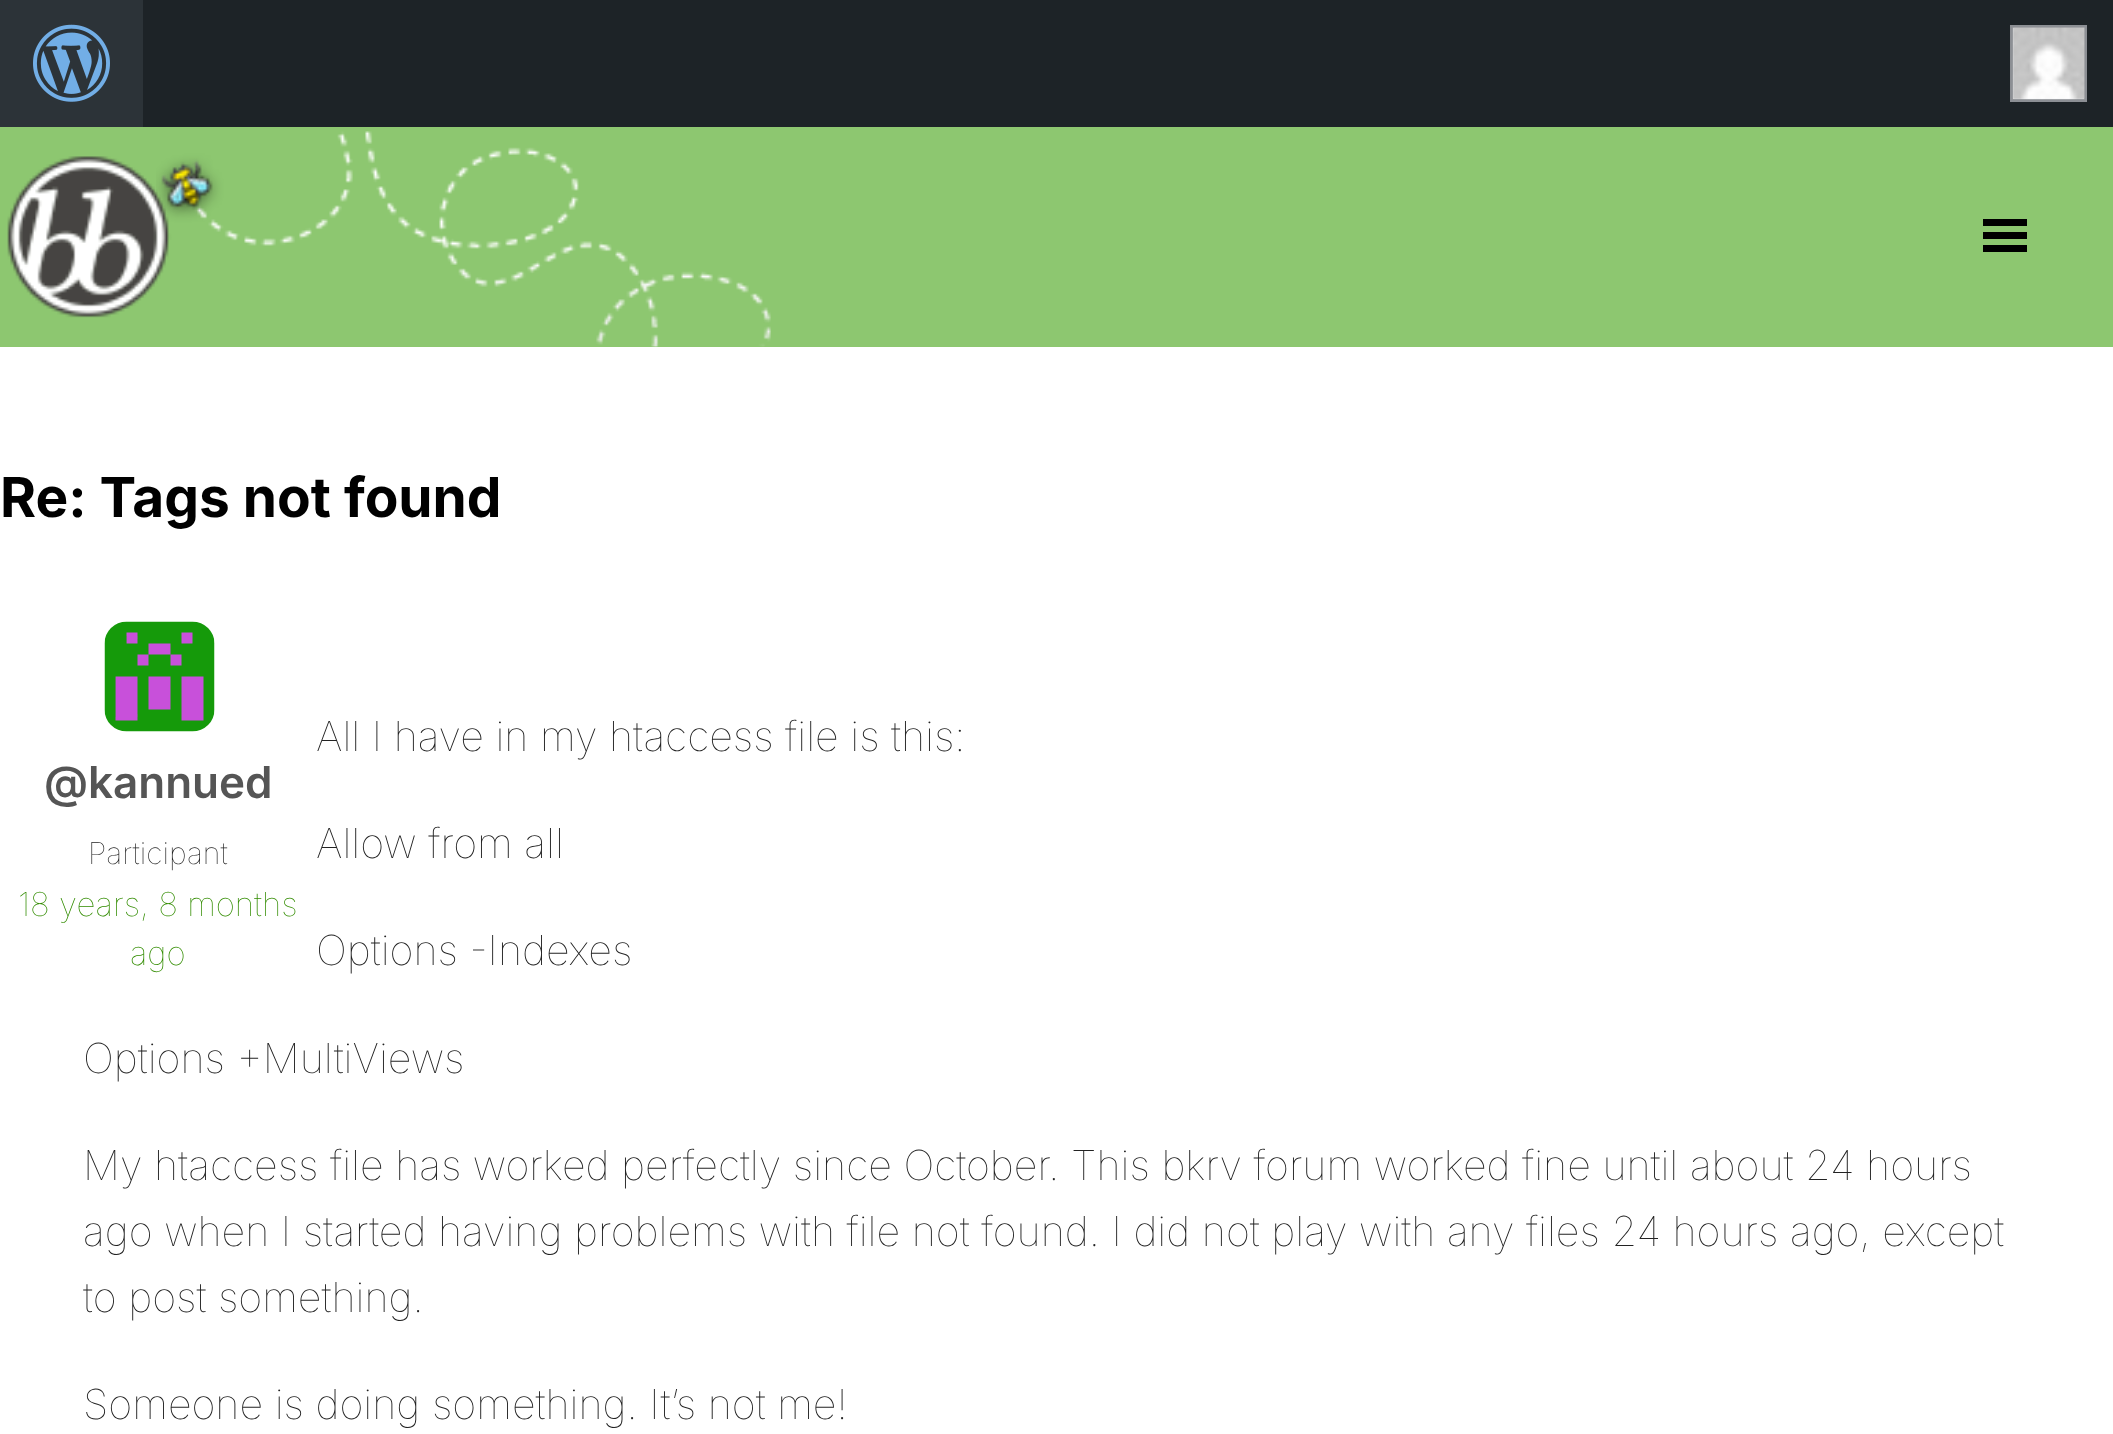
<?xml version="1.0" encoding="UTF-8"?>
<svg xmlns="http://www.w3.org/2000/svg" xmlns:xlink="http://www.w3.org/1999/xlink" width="2113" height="1434">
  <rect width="100%" height="100%" fill="#ffffff" />
  <rect x="143" width="1970" height="127" fill="#1d2327" />
  <rect width="143" height="127" fill="#2c3338" />
  <image x="33" y="24" width="77" height="78" xlink:href="image1.png" />
  <rect x="2011.5" y="26.5" width="74" height="74" fill="#f0f0f1" stroke="#8c8f94" stroke-width="3" />
  <image x="2012" y="27" width="73" height="73" xlink:href="image2.png" />
  <rect y="127" width="2113" height="220" fill="#8dc770" />
  <image x="156" y="131" width="615" height="216" xlink:href="image3.png" />
  <image x="7" y="156" width="172" height="162" xlink:href="image4.png" />
  <path d="M 2027 226 v -7 h -44 v 7 z m 0 13 v -7 h -44 v 7 z m 0 13 v -7 h -44 v 7 z" fill="#000000" />
  <image x="104" y="621" width="111" height="111" xlink:href="image5.png" />
  <text x="0" y="517" style="font-family: Inter; font-size: 55px; font-weight: bold; fill: #000000">Re: Tags not found</text>
  <text x="316" y="751" style="font-family: Inter; font-size: 41.25px; font-weight: 100; fill: #222222">All I have in my htaccess file is this:</text>
  <text x="316" y="858" style="font-family: Inter; font-size: 41.25px; font-weight: 100; fill: #222222">Allow from all</text>
  <text x="316" y="965" style="font-family: Inter; font-size: 41.25px; font-weight: 100; fill: #222222">Options -Indexes</text>
  <text x="83" y="1073" style="font-family: Inter; font-size: 41.25px; font-weight: 100; fill: #222222">Options +MultiViews</text>
  <text x="83" y="1180" style="font-family: Inter; font-size: 41.25px; font-weight: 100; fill: #222222">My htaccess file has worked perfectly since October. This bkrv forum worked fine until about 24 hours</text>
  <text x="83" y="1246" style="font-family: Inter; font-size: 41.25px; font-weight: 100; fill: #222222">ago when I started having problems with file not found. I did not play with any files 24 hours ago, except</text>
  <text x="83" y="1312" style="font-family: Inter; font-size: 41.25px; font-weight: 100; fill: #222222">to post something.</text>
  <text x="83" y="1419" style="font-family: Inter; font-size: 41.25px; font-weight: 100; fill: #222222">Someone is doing something. It’s not me!</text>
  <text x="44" y="798" style="font-family: Inter; font-size: 44px; font-weight: 600; fill: #555555">@kannued</text>
  <text x="88" y="864" style="font-family: Inter; font-size: 30.25px; font-weight: 100; fill: #222222">Participant</text>
  <text x="18" y="916" style="font-family: Inter; font-size: 33px; font-weight: 100; fill: #328c00">18 years, 8 months</text>
  <text x="130" y="965" style="font-family: Inter; font-size: 33px; font-weight: 100; fill: #328c00">ago</text>
</svg>
